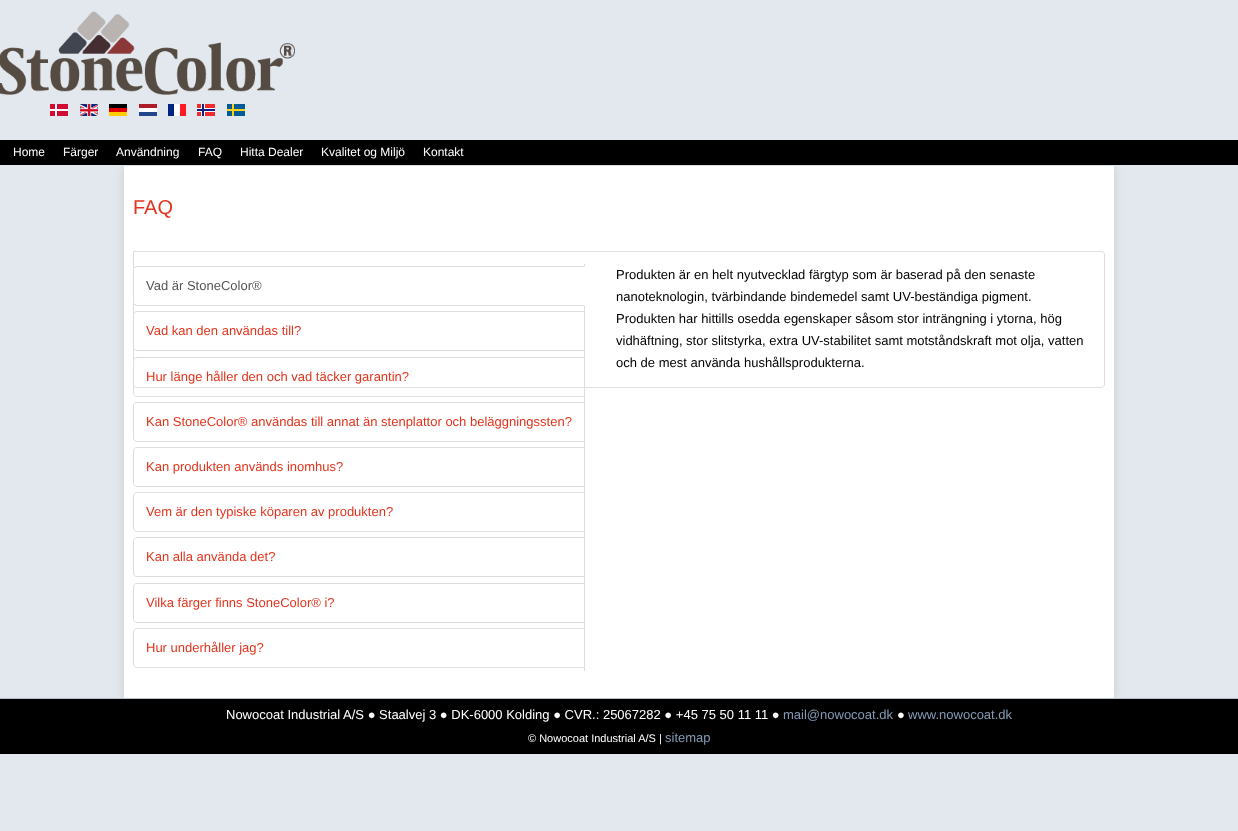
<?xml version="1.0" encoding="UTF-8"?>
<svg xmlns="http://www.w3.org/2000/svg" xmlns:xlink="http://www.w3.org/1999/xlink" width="1238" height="831">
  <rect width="100%" height="100%" fill="#e2e8ee" />
  <image x="0" y="11" width="295" height="84" xlink:href="image1.png" />
  <image x="50" y="104" width="18" height="12" xlink:href="image2.png" />
  <image x="80" y="104" width="18" height="12" xlink:href="image3.png" />
  <image x="109" y="104" width="18" height="12" xlink:href="image4.png" />
  <image x="139" y="104" width="18" height="12" xlink:href="image5.png" />
  <image x="168" y="104" width="18" height="12" xlink:href="image6.png" />
  <image x="197" y="104" width="18" height="12" xlink:href="image7.png" />
  <image x="227" y="104" width="18" height="12" xlink:href="image8.png" />
  <rect x="124" y="167" width="990" height="532" fill="#c9c9c9" filter="blur(4.5px)" />
  <rect y="140" width="1238" height="25" fill="#000000" />
  <rect x="124" y="166" width="990" height="532" fill="#ffffff" />
  <path d="M 133.5 251.5 h 967.5 c 2 0 3.5 1.5 3.5 3.5 v 129 c 0 2 -1.5 3.5 -3.5 3.5 h -964 c -2 0 -3.5 -1.5 -3.5 -3.5 z" fill="none" stroke="#dddddd" />
  <rect x="584" y="264" width="1" height="407" fill="#dddddd" />
  <path d="M 137 266 h 448 v 40 h -448 c -2 0 -4 -2 -4 -4 v -32 c 0 -2 2 -4 4 -4 z" fill="#ffffff" />
  <path d="M 137 266 l -3 1 l 1 1 l 2 -1 h 447 l 1 -1 z" fill="#dddddd" />
  <path d="M 585 306 l -1 -1 h -447 l -2 -1 l -1 1 l 3 1 z" fill="#dddddd" />
  <path d="M 133 270 v 32 c 0 1 0.5 2 1 3 l 1 -1 c -1 0 -1 -1 -1 -2 v -32 c 0 -1 0 -2 1 -2 l -1 -1 c -0.5 1 -1 2 -1 3 z" fill="#dddddd" />
  <path d="M 137 311.5 h 447.5 v 39 h -447.5 c -2 0 -3.5 -1.5 -3.5 -3.5 v -32 c 0 -2 1.5 -3.5 3.5 -3.5 z" fill="none" stroke="#dddddd" />
  <path d="M 137 357.5 h 447.5 v 39 h -447.5 c -2 0 -3.5 -1.5 -3.5 -3.5 v -32 c 0 -2 1.5 -3.5 3.5 -3.5 z" fill="none" stroke="#dddddd" />
  <path d="M 137 402.5 h 447.5 v 39 h -447.5 c -2 0 -3.5 -1.5 -3.5 -3.5 v -32 c 0 -2 1.5 -3.5 3.5 -3.5 z" fill="none" stroke="#dddddd" />
  <path d="M 137 447.5 h 447.5 v 39 h -447.5 c -2 0 -3.5 -1.5 -3.5 -3.5 v -32 c 0 -2 1.5 -3.5 3.5 -3.5 z" fill="none" stroke="#dddddd" />
  <path d="M 137 492.5 h 447.5 v 39 h -447.5 c -2 0 -3.5 -1.5 -3.5 -3.5 v -32 c 0 -2 1.5 -3.5 3.5 -3.5 z" fill="none" stroke="#dddddd" />
  <path d="M 137 537.5 h 447.5 v 39 h -447.5 c -2 0 -3.5 -1.5 -3.5 -3.5 v -32 c 0 -2 1.5 -3.5 3.5 -3.5 z" fill="none" stroke="#dddddd" />
  <path d="M 137 583.5 h 447.5 v 39 h -447.5 c -2 0 -3.5 -1.5 -3.5 -3.5 v -32 c 0 -2 1.5 -3.5 3.5 -3.5 z" fill="none" stroke="#dddddd" />
  <path d="M 137 628.5 h 447.5 v 39 h -447.5 c -2 0 -3.5 -1.5 -3.5 -3.5 v -32 c 0 -2 1.5 -3.5 3.5 -3.5 z" fill="none" stroke="#dddddd" />
  <rect y="699" width="1238" height="55" fill="#000000" />
  <rect y="698" width="1238" height="1" fill="#b6bfc9" />
  <text x="13" y="156" style="font-family: Liberation Sans; font-size: 12px; fill: #ffffff">Home</text>
  <text x="63" y="156" style="font-family: Liberation Sans; font-size: 12px; fill: #ffffff">Färger</text>
  <text x="116" y="156" style="font-family: Liberation Sans; font-size: 12px; fill: #ffffff">Användning</text>
  <text x="198" y="156" style="font-family: Liberation Sans; font-size: 12px; fill: #ffffff">FAQ</text>
  <text x="240" y="156" style="font-family: Liberation Sans; font-size: 12px; fill: #ffffff">Hitta Dealer</text>
  <text x="321" y="156" style="font-family: Liberation Sans; font-size: 12px; fill: #ffffff">Kvalitet og Miljö</text>
  <text x="423" y="156" style="font-family: Liberation Sans; font-size: 12px; fill: #ffffff">Kontakt</text>
  <text x="133" y="214" style="font-family: Liberation Sans; font-size: 20px; fill: #e2341d">FAQ</text>
  <text x="146" y="290" style="font-family: Liberation Sans; font-size: 13px; fill: #555555">Vad är StoneColor®</text>
  <text x="146" y="335" style="font-family: Liberation Sans; font-size: 13px; fill: #e2341d">Vad kan den användas till?</text>
  <text x="146" y="381" style="font-family: Liberation Sans; font-size: 13px; fill: #e2341d">Hur länge håller den och vad täcker garantin?</text>
  <text x="146" y="426" style="font-family: Liberation Sans; font-size: 13px; fill: #e2341d">Kan StoneColor® användas till annat än stenplattor och beläggningssten?</text>
  <text x="146" y="471" style="font-family: Liberation Sans; font-size: 13px; fill: #e2341d">Kan produkten används inomhus?</text>
  <text x="146" y="516" style="font-family: Liberation Sans; font-size: 13px; fill: #e2341d">Vem är den typiske köparen av produkten?</text>
  <text x="146" y="561" style="font-family: Liberation Sans; font-size: 13px; fill: #e2341d">Kan alla använda det?</text>
  <text x="146" y="607" style="font-family: Liberation Sans; font-size: 13px; fill: #e2341d">Vilka färger finns StoneColor® i?</text>
  <text x="146" y="652" style="font-family: Liberation Sans; font-size: 13px; fill: #e2341d">Hur underhåller jag?</text>
  <text x="616" y="279" style="font-family: Liberation Sans; font-size: 13px; fill: #000000">Produkten är en helt nyutvecklad färgtyp som är baserad på den senaste</text>
  <text x="616" y="301" style="font-family: Liberation Sans; font-size: 13px; fill: #000000">nanoteknologin, tvärbindande bindemedel samt UV-beständiga pigment.</text>
  <text x="616" y="323" style="font-family: Liberation Sans; font-size: 13px; fill: #000000">Produkten har hittills osedda egenskaper såsom stor inträngning i ytorna, hög</text>
  <text x="616" y="345" style="font-family: Liberation Sans; font-size: 13px; fill: #000000">vidhäftning, stor slitstyrka, extra UV-stabilitet samt motståndskraft mot olja, vatten</text>
  <text x="616" y="367" style="font-family: Liberation Sans; font-size: 13px; fill: #000000">och de mest använda hushållsprodukterna.</text>
  <text x="226" y="719" style="font-family: Liberation Sans; font-size: 13px; fill: #ffffff">Nowocoat Industrial A/S ● Staalvej 3 ● DK-6000 Kolding ● CVR.: 25067282 ● +45 75 50 11 11 ●</text>
  <text x="783" y="719" style="font-family: Liberation Sans; font-size: 13px; fill: #839bb4">mail@nowocoat.dk</text>
  <text x="897" y="719" style="font-family: Liberation Sans; font-size: 13px; fill: #ffffff">●</text>
  <text x="908" y="719" style="font-family: Liberation Sans; font-size: 13px; fill: #839bb4">www.nowocoat.dk</text>
  <text x="528" y="742" style="font-family: Liberation Sans; font-size: 11px; fill: #ffffff">© Nowocoat Industrial A/S |</text>
  <text x="665" y="742" style="font-family: Liberation Sans; font-size: 13px; fill: #839bb4">sitemap</text>
</svg>
